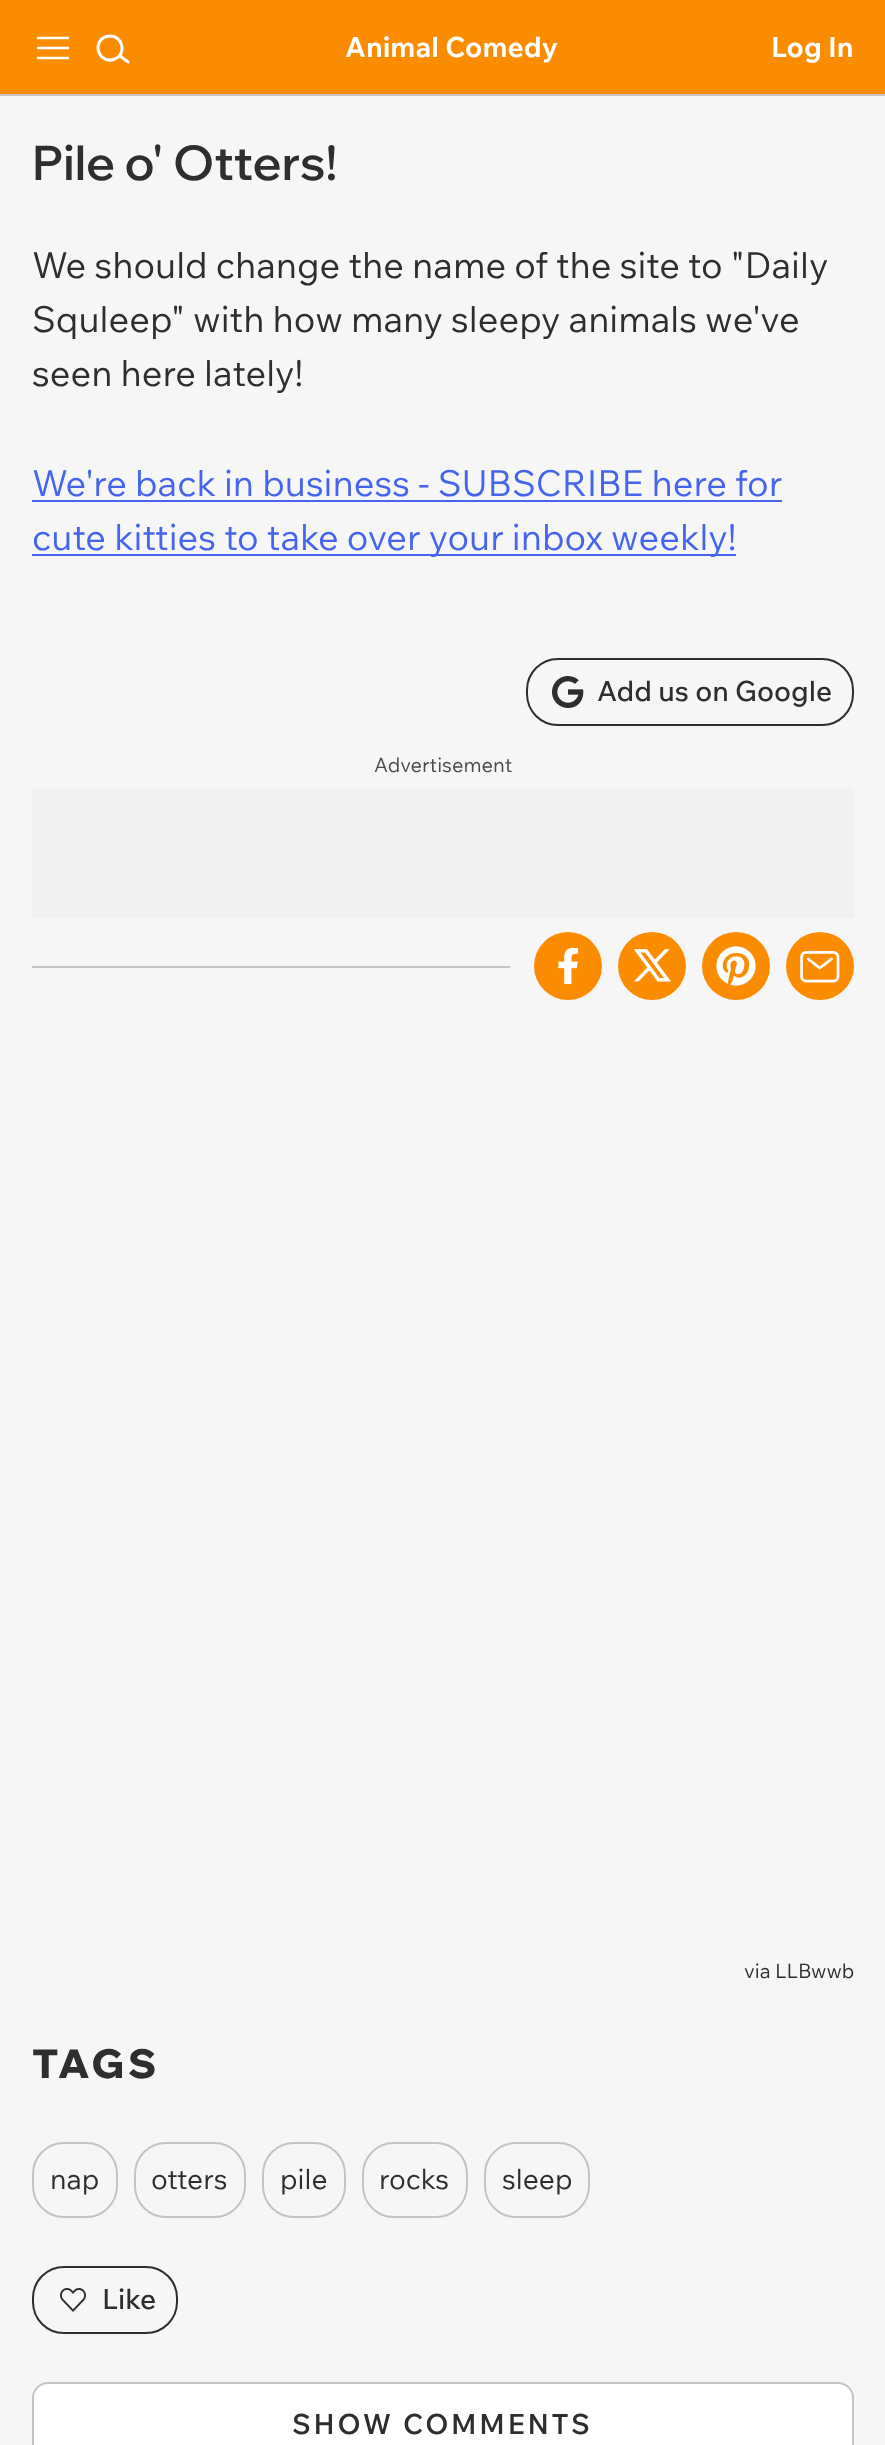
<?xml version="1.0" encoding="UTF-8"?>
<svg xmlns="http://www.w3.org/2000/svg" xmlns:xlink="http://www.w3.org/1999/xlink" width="885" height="2445">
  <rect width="100%" height="100%" fill="#f6f6f6" />
  <rect width="885" height="94" fill="#fb8c00" />
  <rect y="94" width="885" height="2" fill="#c4c4c4" />
  <path d="M 38 38 h 30 m -30 10 h 30 m -30 10 h 30" fill="none" stroke="#ffffff" stroke-width="2.5" stroke-linecap="round" stroke-linejoin="round" />
  <path d="M 120 56 l 8 6" fill="none" stroke="#ffffff" stroke-width="3" stroke-linecap="round" stroke-linejoin="round" />
  <path d="M 98 48 c 0 3 1.5 6 3.5 8.5 c 7.5 7.5 21 2 20.5 -8.5 c -1 -16.5 -24 -15.5 -24 0 z" fill="none" stroke="#ffffff" stroke-width="3" stroke-linejoin="round" />
  <rect x="32" y="500" width="750" height="2" fill="#4664ee" />
  <rect x="32" y="554" width="704" height="2" fill="#4664ee" />
  <rect x="527" y="659" width="326" height="66" rx="31" fill="none" stroke="#2e2e2e" stroke-width="2" />
  <image x="552" y="676" width="32" height="32" xlink:href="image1.png" />
  <rect x="32" y="788" width="822" height="130" fill="#f1f1f1" />
  <rect x="32" y="966" width="478" height="2" fill="#c4c4c4" />
  <circle cx="568" cy="966" r="34" fill="#fb8c00" />
  <image x="558" y="947" width="21" height="38" xlink:href="image2.png" />
  <circle cx="652" cy="966" r="34" fill="#fb8c00" />
  <image x="633" y="949" width="38" height="33" xlink:href="image3.png" />
  <circle cx="736" cy="966" r="34" fill="#fb8c00" />
  <image x="716" y="946" width="40" height="40" xlink:href="image4.png" />
  <circle cx="820" cy="966" r="34" fill="#fb8c00" />
  <image x="800" y="951" width="40" height="32" xlink:href="image5.png" />
  <rect x="33" y="2143" width="84" height="74" rx="31" fill="none" stroke="#c4c4c4" stroke-width="2" />
  <rect x="135" y="2143" width="110" height="74" rx="31" fill="none" stroke="#c4c4c4" stroke-width="2" />
  <rect x="263" y="2143" width="82" height="74" rx="31" fill="none" stroke="#c4c4c4" stroke-width="2" />
  <rect x="363" y="2143" width="104" height="74" rx="31" fill="none" stroke="#c4c4c4" stroke-width="2" />
  <rect x="485" y="2143" width="104" height="74" rx="31" fill="none" stroke="#c4c4c4" stroke-width="2" />
  <rect x="33" y="2267" width="144" height="66" rx="31" fill="none" stroke="#2e2e2e" stroke-width="2" />
  <image x="60" y="2288" width="26" height="24" xlink:href="image6.png" />
  <rect x="33" y="2383" width="820" height="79" rx="15" fill="#ffffff" stroke="#c4c4c4" stroke-width="2" />
  <text x="345" y="57" style="font-family: Wix Madefor Text; font-size: 28px; font-weight: bold; fill: #ffffff">Animal Comedy</text>
  <text x="771" y="57" style="font-family: Wix Madefor Text; font-size: 28px; font-weight: bold; fill: #ffffff">Log In</text>
  <text x="32" y="180" style="font-family: Wix Madefor Display; font-size: 48px; font-weight: 600; fill: #2e2e2e">Pile o' Otters!</text>
  <text x="32" y="278" style="font-family: Wix Madefor Text; font-size: 36px; fill: #2e2e2e">We should change the name of the site to "Daily</text>
  <text x="32" y="332" style="font-family: Wix Madefor Text; font-size: 36px; fill: #2e2e2e">Squleep" with how many sleepy animals we've</text>
  <text x="32" y="386" style="font-family: Wix Madefor Text; font-size: 36px; fill: #2e2e2e">seen here lately!</text>
  <text x="32" y="496" style="font-family: Wix Madefor Text; font-size: 36px; fill: #4664ee">We're back in business - SUBSCRIBE here for</text>
  <text x="32" y="550" style="font-family: Wix Madefor Text; font-size: 36px; fill: #4664ee">cute kitties to take over your inbox weekly!</text>
  <text x="597" y="701" style="font-family: Wix Madefor Text; font-size: 28px; font-weight: 500; fill: #2e2e2e">Add us on Google</text>
  <text x="374" y="772" style="font-family: Wix Madefor Text; font-size: 20px; fill: #4a4a4a">Advertisement</text>
  <text x="744" y="1978" style="font-family: Wix Madefor Text; font-size: 20px; fill: #2e2e2e">via LLBwwb</text>
  <text x="32" y="2078" style="font-family: Wix Madefor Display; font-size: 40px; font-weight: 800; letter-spacing: 4px; fill: #2e2e2e">TAGS</text>
  <text x="50" y="2189" style="font-family: Wix Madefor Text; font-size: 28px; fill: #2e2e2e">nap</text>
  <text x="151" y="2189" style="font-family: Wix Madefor Text; font-size: 28px; fill: #2e2e2e">otters</text>
  <text x="280" y="2189" style="font-family: Wix Madefor Text; font-size: 28px; fill: #2e2e2e">pile</text>
  <text x="379" y="2189" style="font-family: Wix Madefor Text; font-size: 28px; fill: #2e2e2e">rocks</text>
  <text x="502" y="2189" style="font-family: Wix Madefor Text; font-size: 28px; fill: #2e2e2e">sleep</text>
  <text x="102" y="2309" style="font-family: Wix Madefor Text; font-size: 28px; font-weight: 500; fill: #2e2e2e">Like</text>
  <text x="292" y="2434" style="font-family: Wix Madefor Text; font-size: 28px; font-weight: 600; letter-spacing: 2.75px; fill: #2e2e2e">SHOW COMMENTS</text>
</svg>
